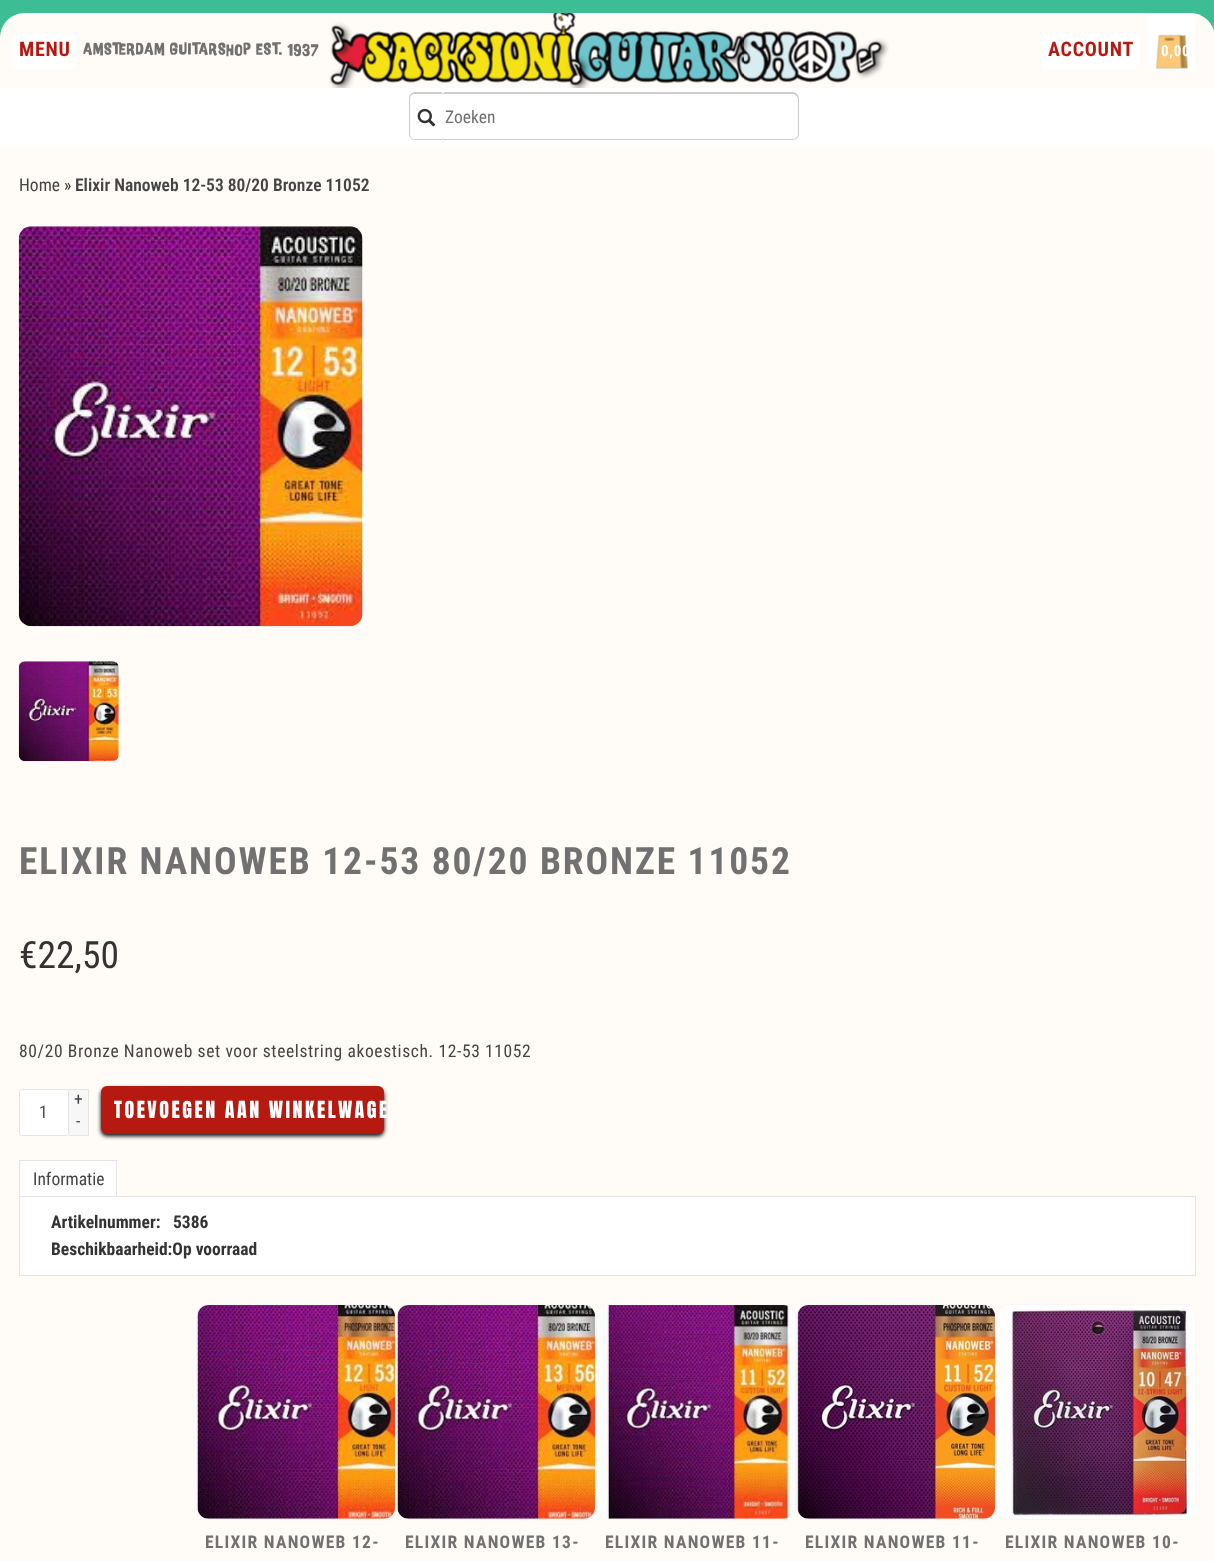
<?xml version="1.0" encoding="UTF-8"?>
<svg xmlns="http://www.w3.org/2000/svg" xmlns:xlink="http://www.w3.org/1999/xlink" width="1214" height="1561">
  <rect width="100%" height="100%" fill="#fffcf8" />
  <rect width="1214" height="38" fill="#3dbd94" />
  <path d="M 25 13 h 1165 c 14 0 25 11 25 25 v 50 h -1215 v -50 c 0 -14 11 -25 25 -25 z" fill="#fffcf8" />
  <image x="329" y="13" width="560" height="75" xlink:href="image1.png" />
  <rect x="13" y="33" width="63" height="36" rx="5" fill="#ffffff" />
  <rect x="1041" y="33" width="99" height="36" rx="5" fill="#ffffff" />
  <rect x="1146" y="15" width="50" height="56" rx="5" fill="#ffffff" />
  <image x="1155" y="34" width="33" height="35" xlink:href="image2.png" />
  <rect y="88" width="1214" height="58" fill="#ffffff" />
  <path d="M 415 92 h 27 v 48 h -27 c -3 0 -6 -3 -6 -6 v -35 c 0 -4 3 -7 6 -7 z m 0 2 h 27 v 45 h -27 c -3 0 -5 -2 -5 -5 v -35 c 0 -3 2 -5 5 -5 z" fill="#cccccc" fill-rule="evenodd" />
  <image x="417" y="108" width="19" height="19" xlink:href="image3.png" />
  <path d="M 445 92 h 347 c 4 0 7 3 7 7 v 35 c 0 3 -3 6 -7 6 h -347 c -1 0 -3 -1 -3 -2 v -43 c 0 -1 2 -3 3 -3 z m 0 2 h 347 c 3 0 6 2 6 5 v 35 c 0 3 -3 5 -6 5 h -347 c -1 0 -3 -1 -3 -1 v -43 c 0 -1 2 -1 3 -1 z" fill="#cccccc" fill-rule="evenodd" />
  <image x="18" y="226" width="345" height="401" xlink:href="image4.png" />
  <image x="18" y="661" width="101" height="101" xlink:href="image5.png" />
  <rect x="19.5" y="1089.5" width="49" height="46" rx="2" fill="#ffffff" stroke="#e5e5e5" />
  <rect x="69" y="1090" width="19" height="45" fill="#f7f7f7" />
  <rect x="69" y="1089" width="20" height="1" fill="#e5e5e5" />
  <rect x="88" y="1089" width="1" height="47" fill="#e5e5e5" />
  <rect x="69" y="1135" width="20" height="1" fill="#e5e5e5" />
  <rect x="101" y="1089" width="283" height="47" rx="6" fill="#000000" filter="blur(2px)" />
  <rect x="101" y="1086" width="283" height="48" rx="6" fill="#b61910" />
  <rect x="20" y="1161" width="98" height="35" fill="#ffffff" />
  <rect x="19" y="1160" width="99" height="1" fill="#e5e5e5" />
  <rect x="116" y="1160" width="1" height="38" fill="#e5e5e5" />
  <rect x="19" y="1160" width="1" height="38" fill="#e5e5e5" />
  <rect x="19.5" y="1196.5" width="1176" height="79" fill="#ffffff" stroke="#e5e5e5" />
  <rect x="196.5" y="1304.5" width="199" height="215" rx="12.5" fill="none" stroke="#f7f7f7" />
  <image x="197" y="1305" width="198" height="214" xlink:href="image6.png" />
  <rect x="396.5" y="1304.5" width="199" height="215" rx="12.5" fill="none" stroke="#f7f7f7" />
  <image x="397" y="1305" width="198" height="214" xlink:href="image7.png" />
  <rect x="596.5" y="1304.5" width="199" height="215" rx="12.5" fill="none" stroke="#f7f7f7" />
  <image x="598" y="1305" width="197" height="214" xlink:href="image8.png" />
  <rect x="796.5" y="1304.5" width="199" height="215" rx="12.5" fill="none" stroke="#f7f7f7" />
  <image x="797" y="1305" width="198" height="214" xlink:href="image9.png" />
  <rect x="996.5" y="1304.5" width="199" height="215" rx="12.5" fill="none" stroke="#f7f7f7" />
  <image x="998" y="1305" width="197" height="214" xlink:href="image10.png" />
  <text x="19" y="56" style="font-family: Roboto Condensed; font-size: 20px; font-weight: bold; letter-spacing: 0.75px; fill: #b61910">MENU</text>
  <text x="1048" y="56" style="font-family: Roboto Condensed; font-size: 20px; font-weight: bold; letter-spacing: 0.75px; fill: #b61910">ACCOUNT</text>
  <text x="1161" y="56" style="font-family: Roboto Condensed; font-size: 15px; font-weight: bold; letter-spacing: 0.75px; fill: #ffffff">0,00</text>
  <text x="83" y="55" style="font-family: 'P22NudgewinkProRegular'; font-size: 15px; font-weight: bold; letter-spacing: 1.25px; fill: #717171">AMSTERDAM GUITARSHOP EST. 1937</text>
  <text x="445" y="123" style="font-family: Roboto Condensed; font-size: 17.5px; fill: #717171">Zoeken</text>
  <text x="19" y="191" style="font-family: Roboto Condensed; font-size: 17.5px; fill: #444444">Home</text>
  <text x="64" y="191" style="font-family: Roboto Condensed; font-size: 17.5px; fill: #333333">»</text>
  <text x="75" y="191" style="font-family: Roboto Condensed; font-size: 17.5px; font-weight: 600; fill: #444444">Elixir Nanoweb 12-53 80/20 Bronze 11052</text>
  <text x="19" y="874" style="font-family: Roboto Condensed; font-size: 37.5px; font-weight: bold; letter-spacing: 1.9px; fill: #717171">ELIXIR NANOWEB 12-53 80/20 BRONZE 11052</text>
  <text x="19" y="968" style="font-family: Roboto Condensed; font-size: 37.5px; fill: #333333">€22,50</text>
  <text x="19" y="1057" style="font-family: Roboto Condensed; font-size: 17.5px; letter-spacing: 0.62px; fill: #444444">80/20 Bronze Nanoweb set voor steelstring akoestisch. 12-53 11052</text>
  <text x="39" y="1118" style="font-family: Roboto Condensed; font-size: 17.5px; fill: #515050">1</text>
  <text x="74" y="1105" style="font-family: Roboto Condensed; font-size: 17.5px; fill: #444444">+</text>
  <text x="76" y="1127" style="font-family: Roboto Condensed; font-size: 17.5px; fill: #444444">-</text>
  <text x="114" y="1118" style="font-family: Anton; font-size: 20px; letter-spacing: 2.5px; fill: #ffffff">TOEVOEGEN AAN WINKELWAGE</text>
  <text x="33" y="1185" style="font-family: Roboto Condensed; font-size: 17.5px; fill: #444444">Informatie</text>
  <text x="51" y="1228" style="font-family: Roboto Condensed; font-size: 17.5px; font-weight: bold; fill: #333333">Artikelnummer:</text>
  <text x="173" y="1228" style="font-family: Roboto Condensed; font-size: 17.5px; font-weight: bold; fill: #333333">5386</text>
  <text x="51" y="1255" style="font-family: Roboto Condensed; font-size: 17.5px; font-weight: bold; fill: #333333">Beschikbaarheid:Op voorraad</text>
  <text x="205" y="1548" style="font-family: Roboto Condensed; font-size: 17.5px; font-weight: bold; letter-spacing: 1.25px; fill: #717171">ELIXIR NANOWEB 12-</text>
  <text x="405" y="1548" style="font-family: Roboto Condensed; font-size: 17.5px; font-weight: bold; letter-spacing: 1.25px; fill: #717171">ELIXIR NANOWEB 13-</text>
  <text x="605" y="1548" style="font-family: Roboto Condensed; font-size: 17.5px; font-weight: bold; letter-spacing: 1.25px; fill: #717171">ELIXIR NANOWEB 11-</text>
  <text x="805" y="1548" style="font-family: Roboto Condensed; font-size: 17.5px; font-weight: bold; letter-spacing: 1.25px; fill: #717171">ELIXIR NANOWEB 11-</text>
  <text x="1005" y="1548" style="font-family: Roboto Condensed; font-size: 17.5px; font-weight: bold; letter-spacing: 1.25px; fill: #717171">ELIXIR NANOWEB 10-</text>
</svg>
